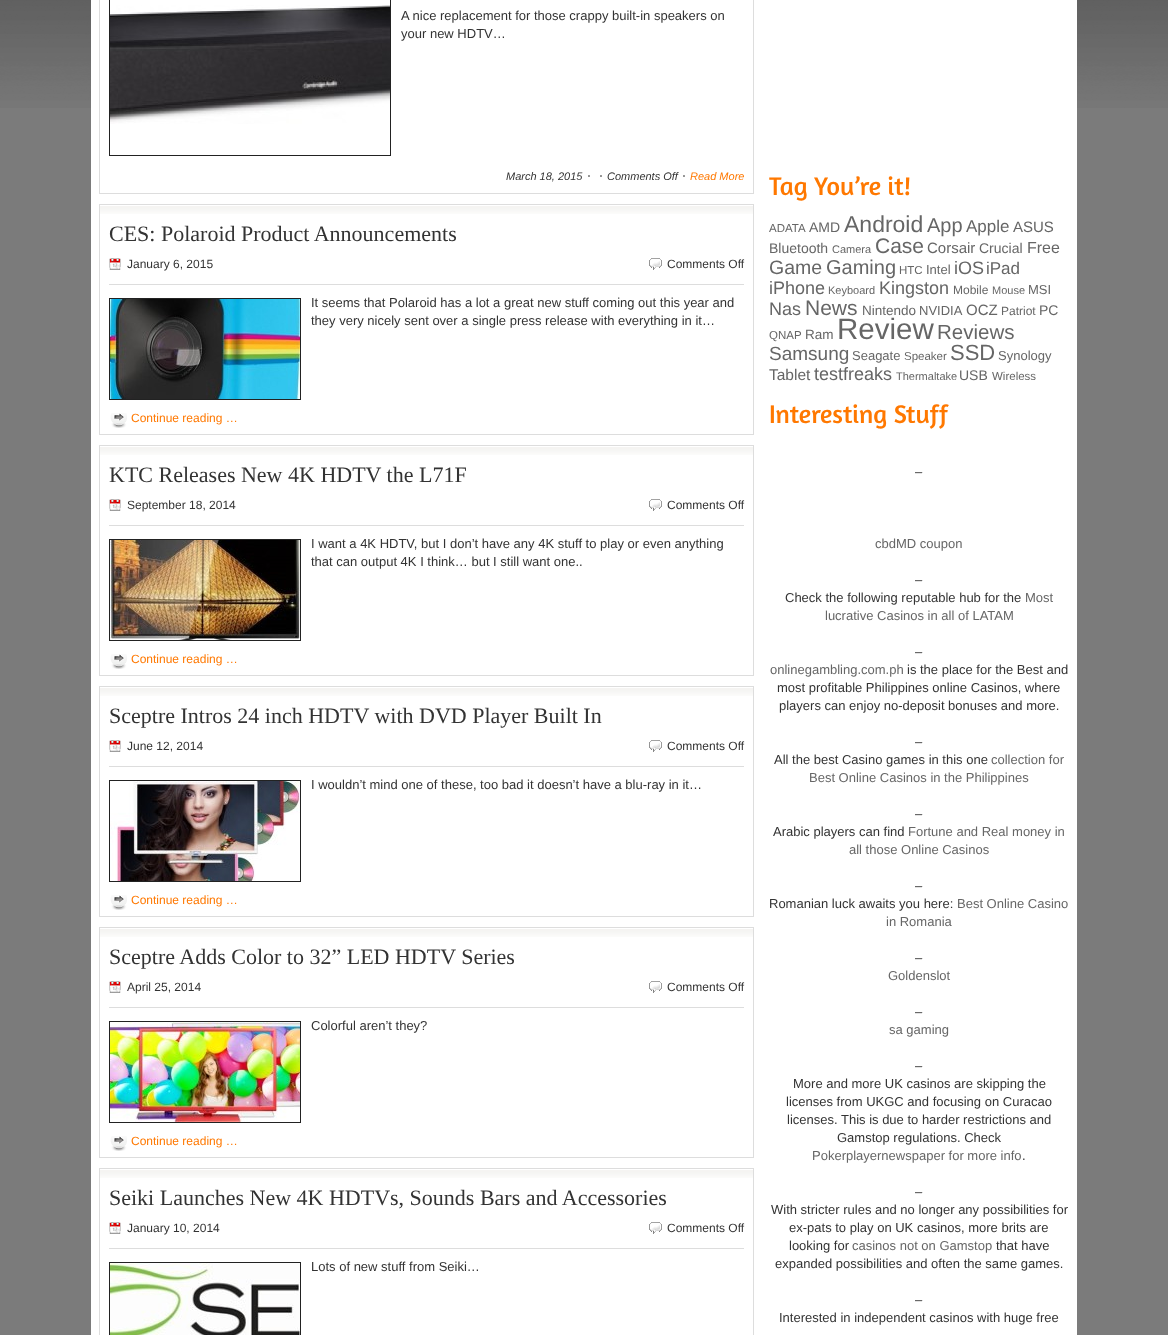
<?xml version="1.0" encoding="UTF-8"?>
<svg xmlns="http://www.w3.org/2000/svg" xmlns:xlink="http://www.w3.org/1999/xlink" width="1168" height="1335">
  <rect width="100%" height="100%" fill="#7b7b7b" />
  <image x="0" y="0" width="1168" height="108" xlink:href="image1.png" />
  <rect x="91" width="986" height="1335" fill="#ffffff" />
  <rect x="99.5" y="-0.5" width="654" height="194" fill="none" stroke="#dddddd" />
  <rect x="109.5" y="-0.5" width="281" height="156" fill="none" stroke="#222222" />
  <image x="110" y="5" width="280" height="119" xlink:href="image2.png" />
  <image x="588" y="175" width="2" height="2" xlink:href="image3.png" />
  <image x="600" y="175" width="2" height="2" xlink:href="image3.png" />
  <image x="683" y="175" width="2" height="2" xlink:href="image3.png" />
  <image x="100" y="206" width="653" height="8" xlink:href="image4.png" />
  <rect x="99.5" y="204.5" width="654" height="230" fill="none" stroke="#dddddd" />
  <rect x="109" y="284" width="635" height="1" fill="#dddddd" />
  <image x="109" y="258" width="12" height="12" xlink:href="image5.png" />
  <image x="649" y="258" width="13" height="12" xlink:href="image6.png" />
  <rect x="109.5" y="298.5" width="191" height="101" fill="none" stroke="#222222" />
  <image x="110" y="299" width="190" height="100" xlink:href="image7.png" />
  <image x="110" y="413" width="17" height="15" xlink:href="image8.png" />
  <image x="100" y="447" width="653" height="8" xlink:href="image4.png" />
  <rect x="99.5" y="445.5" width="654" height="230" fill="none" stroke="#dddddd" />
  <rect x="109" y="525" width="635" height="1" fill="#dddddd" />
  <image x="109" y="499" width="12" height="12" xlink:href="image5.png" />
  <image x="649" y="499" width="13" height="12" xlink:href="image6.png" />
  <rect x="109.5" y="539.5" width="191" height="101" fill="none" stroke="#222222" />
  <image x="110" y="540" width="190" height="100" xlink:href="image9.png" />
  <image x="110" y="654" width="17" height="15" xlink:href="image8.png" />
  <image x="100" y="688" width="653" height="8" xlink:href="image4.png" />
  <rect x="99.5" y="686.5" width="654" height="230" fill="none" stroke="#dddddd" />
  <rect x="109" y="766" width="635" height="1" fill="#dddddd" />
  <image x="109" y="740" width="12" height="12" xlink:href="image5.png" />
  <image x="649" y="740" width="13" height="12" xlink:href="image6.png" />
  <rect x="109.5" y="780.5" width="191" height="101" fill="none" stroke="#222222" />
  <image x="110" y="781" width="190" height="100" xlink:href="image10.png" />
  <image x="110" y="895" width="17" height="15" xlink:href="image8.png" />
  <image x="100" y="929" width="653" height="8" xlink:href="image4.png" />
  <rect x="99.5" y="927.5" width="654" height="230" fill="none" stroke="#dddddd" />
  <rect x="109" y="1007" width="635" height="1" fill="#dddddd" />
  <image x="109" y="981" width="12" height="12" xlink:href="image5.png" />
  <image x="649" y="981" width="13" height="12" xlink:href="image6.png" />
  <rect x="109.5" y="1021.5" width="191" height="101" fill="none" stroke="#222222" />
  <image x="110" y="1022" width="190" height="100" xlink:href="image11.png" />
  <image x="110" y="1136" width="17" height="15" xlink:href="image8.png" />
  <image x="100" y="1170" width="653" height="8" xlink:href="image4.png" />
  <rect x="99.5" y="1168.5" width="654" height="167" fill="none" stroke="#dddddd" />
  <rect x="109" y="1248" width="635" height="1" fill="#dddddd" />
  <image x="109" y="1222" width="12" height="12" xlink:href="image5.png" />
  <image x="649" y="1222" width="13" height="12" xlink:href="image6.png" />
  <rect x="109.5" y="1262.5" width="191" height="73" fill="none" stroke="#222222" />
  <image x="110" y="1263" width="190" height="72" xlink:href="image12.png" />
  <text x="401" y="20" style="font-family: Liberation Sans; font-size: 13px; fill: #333333">A nice replacement for those crappy built-in speakers on</text>
  <text x="401" y="38" style="font-family: Liberation Sans; font-size: 13px; fill: #333333">your new HDTV…</text>
  <text x="506" y="180" style="font-family: Liberation Sans; font-size: 11px; font-style: italic; fill: #333333">March 18, 2015</text>
  <text x="607" y="180" style="font-family: Liberation Sans; font-size: 11px; font-style: italic; fill: #333333">Comments Off</text>
  <text x="690" y="180" style="font-family: Liberation Sans; font-size: 11px; font-style: italic; fill: #ff7800">Read More</text>
  <text x="109" y="241" style="font-family: Liberation Serif; font-size: 22px; fill: #333333">CES: Polaroid Product Announcements</text>
  <text x="127" y="268" style="font-family: Liberation Sans; font-size: 12px; fill: #333333">January 6, 2015</text>
  <text x="667" y="268" style="font-family: Liberation Sans; font-size: 12px; fill: #333333">Comments Off</text>
  <text x="311" y="307" style="font-family: Liberation Sans; font-size: 13px; fill: #333333">It seems that Polaroid has a lot a great new stuff coming out this year and</text>
  <text x="311" y="325" style="font-family: Liberation Sans; font-size: 13px; fill: #333333">they very nicely sent over a single press release with everything in it…</text>
  <text x="131" y="422" style="font-family: Liberation Sans; font-size: 12px; fill: #ff7800">Continue reading …</text>
  <text x="109" y="482" style="font-family: Liberation Serif; font-size: 22px; fill: #333333">KTC Releases New 4K HDTV the L71F</text>
  <text x="127" y="509" style="font-family: Liberation Sans; font-size: 12px; fill: #333333">September 18, 2014</text>
  <text x="667" y="509" style="font-family: Liberation Sans; font-size: 12px; fill: #333333">Comments Off</text>
  <text x="311" y="548" style="font-family: Liberation Sans; font-size: 13px; fill: #333333">I want a 4K HDTV, but I don’t have any 4K stuff to play or even anything</text>
  <text x="311" y="566" style="font-family: Liberation Sans; font-size: 13px; fill: #333333">that can output 4K I think… but I still want one..</text>
  <text x="131" y="663" style="font-family: Liberation Sans; font-size: 12px; fill: #ff7800">Continue reading …</text>
  <text x="109" y="723" style="font-family: Liberation Serif; font-size: 22px; fill: #333333">Sceptre Intros 24 inch HDTV with DVD Player Built In</text>
  <text x="127" y="750" style="font-family: Liberation Sans; font-size: 12px; fill: #333333">June 12, 2014</text>
  <text x="667" y="750" style="font-family: Liberation Sans; font-size: 12px; fill: #333333">Comments Off</text>
  <text x="311" y="789" style="font-family: Liberation Sans; font-size: 13px; fill: #333333">I wouldn’t mind one of these, too bad it doesn’t have a blu-ray in it…</text>
  <text x="131" y="904" style="font-family: Liberation Sans; font-size: 12px; fill: #ff7800">Continue reading …</text>
  <text x="109" y="964" style="font-family: Liberation Serif; font-size: 22px; fill: #333333">Sceptre Adds Color to 32” LED HDTV Series</text>
  <text x="127" y="991" style="font-family: Liberation Sans; font-size: 12px; fill: #333333">April 25, 2014</text>
  <text x="667" y="991" style="font-family: Liberation Sans; font-size: 12px; fill: #333333">Comments Off</text>
  <text x="311" y="1030" style="font-family: Liberation Sans; font-size: 13px; fill: #333333">Colorful aren’t they?</text>
  <text x="131" y="1145" style="font-family: Liberation Sans; font-size: 12px; fill: #ff7800">Continue reading …</text>
  <text x="109" y="1205" style="font-family: Liberation Serif; font-size: 22px; fill: #333333">Seiki Launches New 4K HDTVs, Sounds Bars and Accessories</text>
  <text x="127" y="1232" style="font-family: Liberation Sans; font-size: 12px; fill: #333333">January 10, 2014</text>
  <text x="667" y="1232" style="font-family: Liberation Sans; font-size: 12px; fill: #333333">Comments Off</text>
  <text x="311" y="1271" style="font-family: Liberation Sans; font-size: 13px; fill: #333333">Lots of new stuff from Seiki…</text>
  <text x="769" y="195" style="font-family: Amaranth; font-size: 26px; fill: #ff7800">Tag You’re it!</text>
  <text x="769" y="232" style="font-family: Liberation Sans; font-size: 11.5px; fill: #666666">ADATA</text>
  <text x="809" y="232" style="font-family: Liberation Sans; font-size: 14px; fill: #666666">AMD</text>
  <text x="844" y="232" style="font-family: Liberation Sans; font-size: 23px; fill: #666666">Android</text>
  <text x="927" y="232" style="font-family: Liberation Sans; font-size: 20px; fill: #666666">App</text>
  <text x="966" y="232" style="font-family: Liberation Sans; font-size: 17px; fill: #666666">Apple</text>
  <text x="1013" y="232" style="font-family: Liberation Sans; font-size: 15px; fill: #666666">ASUS</text>
  <text x="769" y="253" style="font-family: Liberation Sans; font-size: 14px; fill: #666666">Bluetooth</text>
  <text x="832" y="253" style="font-family: Liberation Sans; font-size: 11px; fill: #666666">Camera</text>
  <text x="875" y="253" style="font-family: Liberation Sans; font-size: 21px; fill: #666666">Case</text>
  <text x="927" y="253" style="font-family: Liberation Sans; font-size: 15px; fill: #666666">Corsair</text>
  <text x="979" y="253" style="font-family: Liberation Sans; font-size: 14px; fill: #666666">Crucial</text>
  <text x="1027" y="253" style="font-family: Liberation Sans; font-size: 16px; fill: #666666">Free</text>
  <text x="769" y="274" style="font-family: Liberation Sans; font-size: 19.5px; fill: #666666">Game</text>
  <text x="826" y="274" style="font-family: Liberation Sans; font-size: 20px; fill: #666666">Gaming</text>
  <text x="899" y="274" style="font-family: Liberation Sans; font-size: 11.5px; fill: #666666">HTC</text>
  <text x="926" y="274" style="font-family: Liberation Sans; font-size: 13px; fill: #666666">Intel</text>
  <text x="954" y="274" style="font-family: Liberation Sans; font-size: 18px; fill: #666666">iOS</text>
  <text x="986" y="274" style="font-family: Liberation Sans; font-size: 17px; fill: #666666">iPad</text>
  <text x="769" y="294" style="font-family: Liberation Sans; font-size: 18px; fill: #666666">iPhone</text>
  <text x="828" y="294" style="font-family: Liberation Sans; font-size: 11px; fill: #666666">Keyboard</text>
  <text x="879" y="294" style="font-family: Liberation Sans; font-size: 18px; fill: #666666">Kingston</text>
  <text x="953" y="294" style="font-family: Liberation Sans; font-size: 12px; fill: #666666">Mobile</text>
  <text x="992" y="294" style="font-family: Liberation Sans; font-size: 11px; fill: #666666">Mouse</text>
  <text x="1028" y="294" style="font-family: Liberation Sans; font-size: 13px; fill: #666666">MSI</text>
  <text x="769" y="315" style="font-family: Liberation Sans; font-size: 18px; fill: #666666">Nas</text>
  <text x="805" y="315" style="font-family: Liberation Sans; font-size: 21px; fill: #666666">News</text>
  <text x="862" y="315" style="font-family: Liberation Sans; font-size: 13.5px; fill: #666666">Nintendo</text>
  <text x="919" y="315" style="font-family: Liberation Sans; font-size: 13px; fill: #666666">NVIDIA</text>
  <text x="966" y="315" style="font-family: Liberation Sans; font-size: 15px; fill: #666666">OCZ</text>
  <text x="1001" y="315" style="font-family: Liberation Sans; font-size: 12px; fill: #666666">Patriot</text>
  <text x="1039" y="315" style="font-family: Liberation Sans; font-size: 14px; fill: #666666">PC</text>
  <text x="769" y="339" style="font-family: Liberation Sans; font-size: 11.5px; fill: #666666">QNAP</text>
  <text x="805" y="339" style="font-family: Liberation Sans; font-size: 13.5px; fill: #666666">Ram</text>
  <text x="837" y="339" style="font-family: Liberation Sans; font-size: 29.5px; fill: #666666">Review</text>
  <text x="937" y="339" style="font-family: Liberation Sans; font-size: 20.5px; fill: #666666">Reviews</text>
  <text x="769" y="360" style="font-family: Liberation Sans; font-size: 19px; fill: #666666">Samsung</text>
  <text x="852" y="360" style="font-family: Liberation Sans; font-size: 13px; fill: #666666">Seagate</text>
  <text x="904" y="360" style="font-family: Liberation Sans; font-size: 11.5px; fill: #666666">Speaker</text>
  <text x="950" y="360" style="font-family: Liberation Sans; font-size: 22px; fill: #666666">SSD</text>
  <text x="998" y="360" style="font-family: Liberation Sans; font-size: 13px; fill: #666666">Synology</text>
  <text x="769" y="380" style="font-family: Liberation Sans; font-size: 15.5px; fill: #666666">Tablet</text>
  <text x="814" y="380" style="font-family: Liberation Sans; font-size: 18px; fill: #666666">testfreaks</text>
  <text x="896" y="380" style="font-family: Liberation Sans; font-size: 11px; fill: #666666">Thermaltake</text>
  <text x="959" y="380" style="font-family: Liberation Sans; font-size: 14px; fill: #666666">USB</text>
  <text x="992" y="380" style="font-family: Liberation Sans; font-size: 11.5px; fill: #666666">Wireless</text>
  <text x="769" y="423" style="font-family: Amaranth; font-size: 26px; fill: #ff7800">Interesting Stuff</text>
  <text x="915" y="476" style="font-family: Liberation Sans; font-size: 13px; fill: #333333">–</text>
  <text x="875" y="548" style="font-family: Liberation Sans; font-size: 13px; fill: #666666">cbdMD coupon</text>
  <text x="915" y="584" style="font-family: Liberation Sans; font-size: 13px; fill: #333333">–</text>
  <text x="785" y="602" style="font-family: Liberation Sans; font-size: 13px; fill: #333333">Check the following reputable hub for the</text>
  <text x="1025" y="602" style="font-family: Liberation Sans; font-size: 13px; fill: #666666">Most</text>
  <text x="825" y="620" style="font-family: Liberation Sans; font-size: 13px; fill: #666666">lucrative Casinos in all of LATAM</text>
  <text x="915" y="656" style="font-family: Liberation Sans; font-size: 13px; fill: #333333">–</text>
  <text x="770" y="674" style="font-family: Liberation Sans; font-size: 13px; fill: #666666">onlinegambling.com.ph</text>
  <text x="907" y="674" style="font-family: Liberation Sans; font-size: 13px; fill: #333333">is the place for the Best and</text>
  <text x="777" y="692" style="font-family: Liberation Sans; font-size: 13px; fill: #333333">most profitable Philippines online Casinos, where</text>
  <text x="779" y="710" style="font-family: Liberation Sans; font-size: 13px; fill: #333333">players can enjoy no-deposit bonuses and more.</text>
  <text x="915" y="746" style="font-family: Liberation Sans; font-size: 13px; fill: #333333">–</text>
  <text x="774" y="764" style="font-family: Liberation Sans; font-size: 13px; fill: #333333">All the best Casino games in this one</text>
  <text x="991" y="764" style="font-family: Liberation Sans; font-size: 13px; fill: #666666">collection for</text>
  <text x="809" y="782" style="font-family: Liberation Sans; font-size: 13px; fill: #666666">Best Online Casinos in the Philippines</text>
  <text x="915" y="818" style="font-family: Liberation Sans; font-size: 13px; fill: #333333">–</text>
  <text x="773" y="836" style="font-family: Liberation Sans; font-size: 13px; fill: #333333">Arabic players can find</text>
  <text x="908" y="836" style="font-family: Liberation Sans; font-size: 13px; fill: #666666">Fortune and Real money in</text>
  <text x="849" y="854" style="font-family: Liberation Sans; font-size: 13px; fill: #666666">all those Online Casinos</text>
  <text x="915" y="890" style="font-family: Liberation Sans; font-size: 13px; fill: #333333">–</text>
  <text x="769" y="908" style="font-family: Liberation Sans; font-size: 13px; fill: #333333">Romanian luck awaits you here:</text>
  <text x="957" y="908" style="font-family: Liberation Sans; font-size: 13px; fill: #666666">Best Online Casino</text>
  <text x="886" y="926" style="font-family: Liberation Sans; font-size: 13px; fill: #666666">in Romania</text>
  <text x="915" y="962" style="font-family: Liberation Sans; font-size: 13px; fill: #333333">–</text>
  <text x="888" y="980" style="font-family: Liberation Sans; font-size: 13px; fill: #666666">Goldenslot</text>
  <text x="915" y="1016" style="font-family: Liberation Sans; font-size: 13px; fill: #333333">–</text>
  <text x="889" y="1034" style="font-family: Liberation Sans; font-size: 13px; fill: #666666">sa gaming</text>
  <text x="915" y="1070" style="font-family: Liberation Sans; font-size: 13px; fill: #333333">–</text>
  <text x="793" y="1088" style="font-family: Liberation Sans; font-size: 13px; fill: #333333">More and more UK casinos are skipping the</text>
  <text x="786" y="1106" style="font-family: Liberation Sans; font-size: 13px; fill: #333333">licenses from UKGC and focusing on Curacao</text>
  <text x="787" y="1124" style="font-family: Liberation Sans; font-size: 13px; fill: #333333">licenses. This is due to harder restrictions and</text>
  <text x="837" y="1142" style="font-family: Liberation Sans; font-size: 13px; fill: #333333">Gamstop regulations. Check</text>
  <text x="812" y="1160" style="font-family: Liberation Sans; font-size: 13px; fill: #666666">Pokerplayernewspaper for more info</text>
  <text x="1022" y="1160" style="font-family: Liberation Sans; font-size: 13px; fill: #333333">.</text>
  <text x="915" y="1196" style="font-family: Liberation Sans; font-size: 13px; fill: #333333">–</text>
  <text x="771" y="1214" style="font-family: Liberation Sans; font-size: 13px; fill: #333333">With stricter rules and no longer any possibilities for</text>
  <text x="789" y="1232" style="font-family: Liberation Sans; font-size: 13px; fill: #333333">ex-pats to play on UK casinos, more brits are</text>
  <text x="789" y="1250" style="font-family: Liberation Sans; font-size: 13px; fill: #333333">looking for</text>
  <text x="852" y="1250" style="font-family: Liberation Sans; font-size: 13px; fill: #666666">casinos not on Gamstop</text>
  <text x="996" y="1250" style="font-family: Liberation Sans; font-size: 13px; fill: #333333">that have</text>
  <text x="775" y="1268" style="font-family: Liberation Sans; font-size: 13px; fill: #333333">expanded possibilities and often the same games.</text>
  <text x="915" y="1304" style="font-family: Liberation Sans; font-size: 13px; fill: #333333">–</text>
  <text x="779" y="1322" style="font-family: Liberation Sans; font-size: 13px; fill: #333333">Interested in independent casinos with huge free</text>
</svg>
